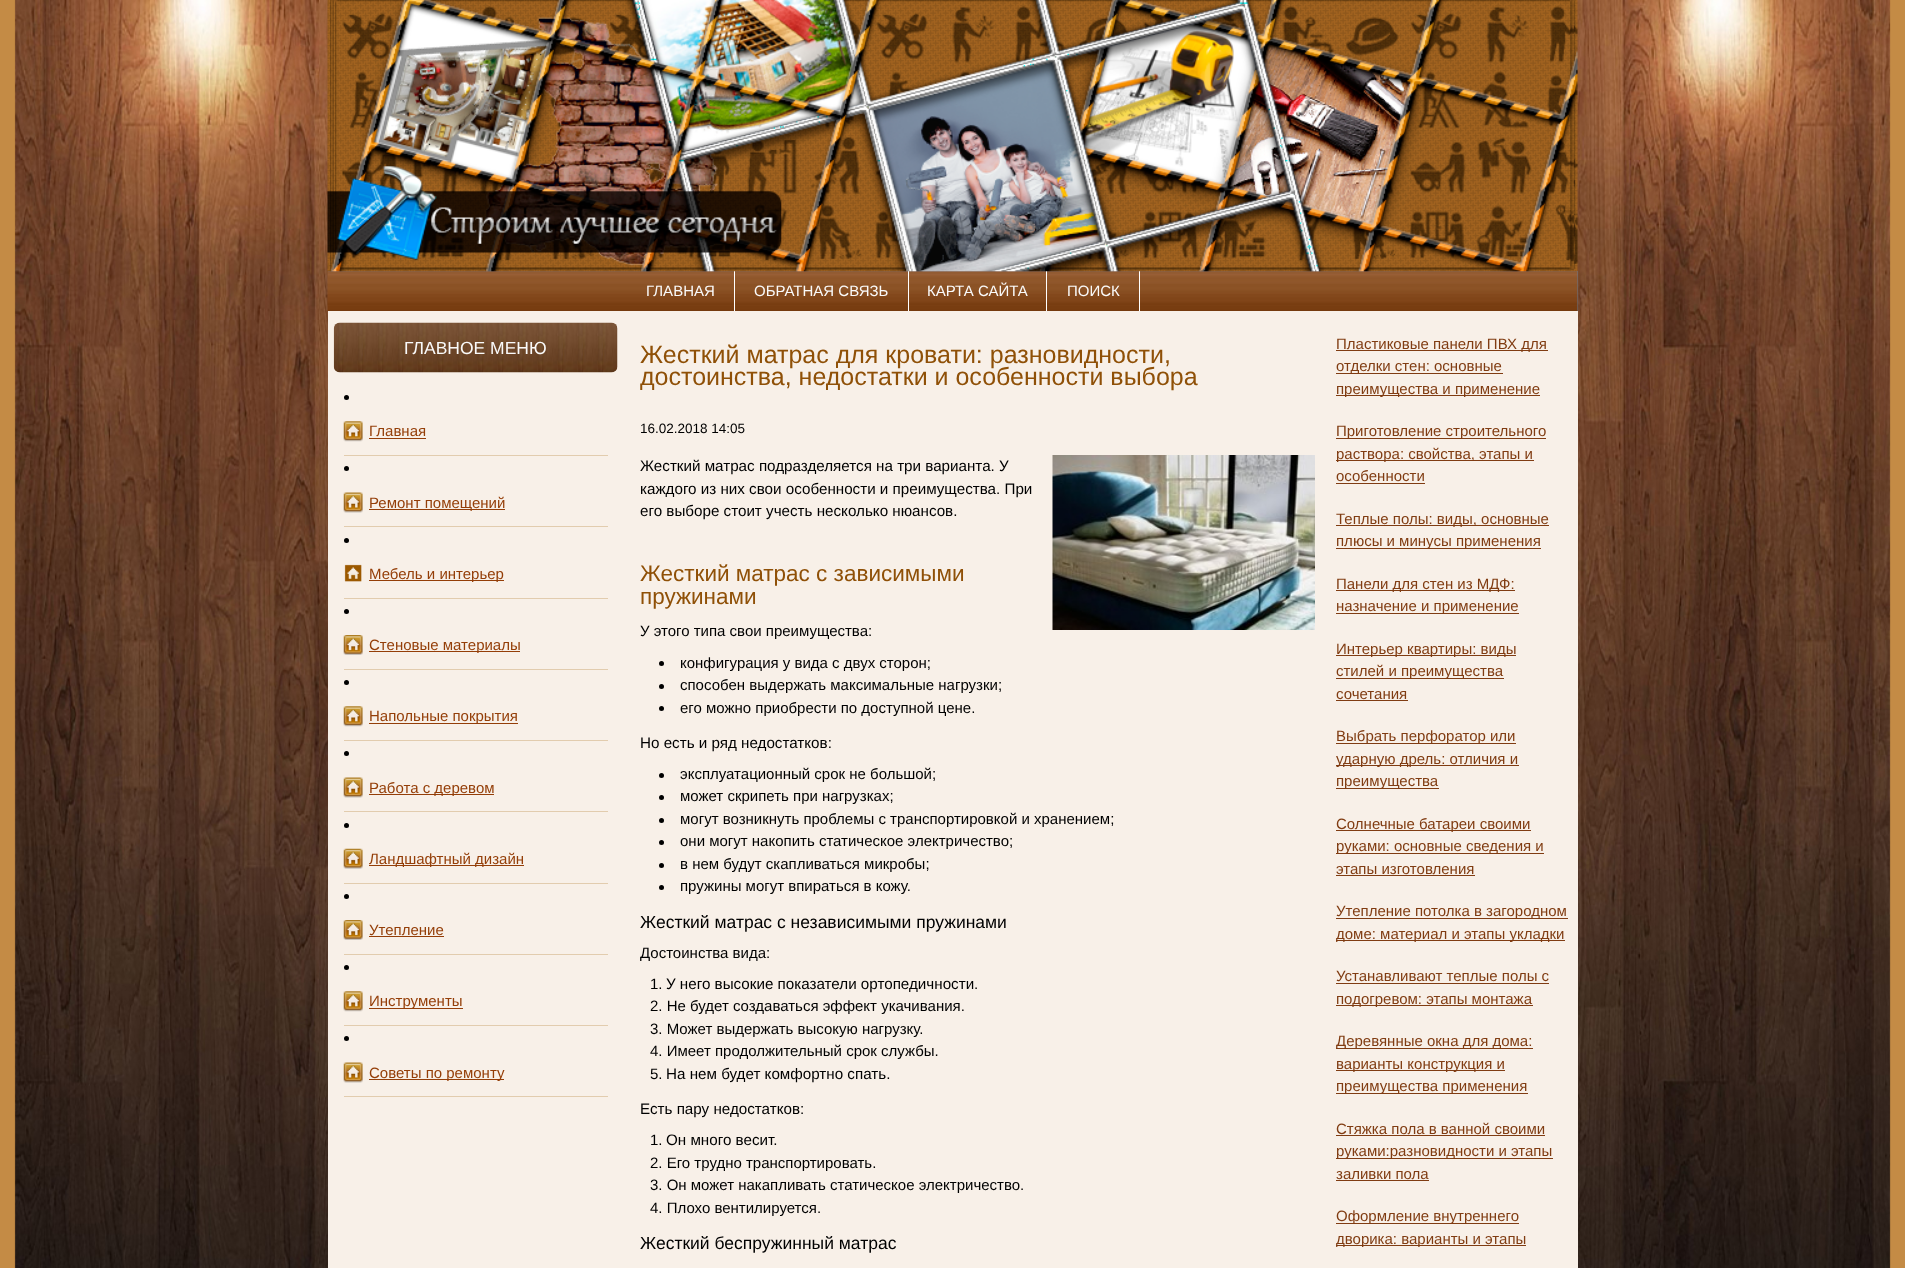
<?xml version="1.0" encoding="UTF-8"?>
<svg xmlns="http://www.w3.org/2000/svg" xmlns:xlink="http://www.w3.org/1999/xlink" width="1905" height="1268">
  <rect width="100%" height="100%" fill="#c48b45" />
  <image x="14" y="0" width="1877" height="1268" xlink:href="image1.png" />
  <rect x="328" y="271" width="1250" height="40" fill="#66758c" />
  <image x="327" y="271" width="1251" height="41" xlink:href="image3.png" />
  <rect x="734" y="271" width="1" height="40" fill="#ffffff" />
  <rect x="908" y="271" width="1" height="40" fill="#ffffff" />
  <rect x="1046" y="271" width="1" height="40" fill="#ffffff" />
  <rect x="1139" y="271" width="1" height="40" fill="#ffffff" />
  <image x="327" y="0" width="1251" height="272" xlink:href="image2.png" />
  <rect x="328" y="311" width="1250" height="957" fill="#f8f0e8" />
  <image x="333" y="322" width="285" height="51" xlink:href="image4.png" />
  <rect x="344" y="455" width="264" height="1" fill="#e2ccae" />
  <circle cx="346.5" cy="397.5" r="2.5" fill="#000000" />
  <image x="343" y="421" width="20" height="21" xlink:href="image5.png" />
  <rect x="369" y="438" width="57" height="1" fill="#943e08" />
  <rect x="344" y="526" width="264" height="1" fill="#e2ccae" />
  <circle cx="346.5" cy="468.5" r="2.5" fill="#000000" />
  <image x="343" y="492" width="20" height="21" xlink:href="image6.png" />
  <rect x="369" y="509" width="136" height="1" fill="#943e08" />
  <rect x="344" y="598" width="264" height="1" fill="#e2ccae" />
  <circle cx="346.5" cy="540.5" r="2.5" fill="#000000" />
  <image x="344" y="564" width="18" height="18" xlink:href="image7.png" />
  <rect x="369" y="580" width="135" height="1" fill="#943e08" />
  <rect x="344" y="669" width="264" height="1" fill="#e2ccae" />
  <circle cx="346.5" cy="611.5" r="2.5" fill="#000000" />
  <image x="343" y="635" width="20" height="20" xlink:href="image8.png" />
  <rect x="369" y="651" width="151" height="1" fill="#943e08" />
  <rect x="344" y="740" width="264" height="1" fill="#e2ccae" />
  <circle cx="346.5" cy="682.5" r="2.5" fill="#000000" />
  <image x="343" y="706" width="20" height="21" xlink:href="image5.png" />
  <rect x="369" y="723" width="149" height="1" fill="#943e08" />
  <rect x="344" y="811" width="264" height="1" fill="#e2ccae" />
  <circle cx="346.5" cy="753.5" r="2.5" fill="#000000" />
  <image x="343" y="777" width="20" height="21" xlink:href="image9.png" />
  <rect x="369" y="794" width="125" height="1" fill="#943e08" />
  <rect x="344" y="883" width="264" height="1" fill="#e2ccae" />
  <circle cx="346.5" cy="825.5" r="2.5" fill="#000000" />
  <image x="343" y="848" width="20" height="21" xlink:href="image10.png" />
  <rect x="369" y="865" width="155" height="1" fill="#943e08" />
  <rect x="344" y="954" width="264" height="1" fill="#e2ccae" />
  <circle cx="346.5" cy="896.5" r="2.5" fill="#000000" />
  <image x="343" y="920" width="20" height="20" xlink:href="image8.png" />
  <rect x="369" y="936" width="75" height="1" fill="#943e08" />
  <rect x="344" y="1025" width="264" height="1" fill="#e2ccae" />
  <circle cx="346.5" cy="967.5" r="2.5" fill="#000000" />
  <image x="343" y="991" width="20" height="21" xlink:href="image5.png" />
  <rect x="369" y="1008" width="94" height="1" fill="#943e08" />
  <rect x="344" y="1096" width="264" height="1" fill="#e2ccae" />
  <circle cx="346.5" cy="1038.5" r="2.5" fill="#000000" />
  <image x="343" y="1062" width="20" height="21" xlink:href="image6.png" />
  <rect x="369" y="1079" width="135" height="1" fill="#943e08" />
  <image x="1052" y="455" width="263" height="175" xlink:href="image11.png" />
  <circle cx="661.5" cy="663.5" r="2.5" fill="#000000" />
  <circle cx="661.5" cy="686.5" r="2.5" fill="#000000" />
  <circle cx="661.5" cy="708.5" r="2.5" fill="#000000" />
  <circle cx="661.5" cy="775.5" r="2.5" fill="#000000" />
  <circle cx="661.5" cy="797.5" r="2.5" fill="#000000" />
  <circle cx="661.5" cy="820.5" r="2.5" fill="#000000" />
  <circle cx="661.5" cy="842.5" r="2.5" fill="#000000" />
  <circle cx="661.5" cy="865.5" r="2.5" fill="#000000" />
  <circle cx="661.5" cy="887.5" r="2.5" fill="#000000" />
  <rect x="1336" y="350" width="212" height="1" fill="#803c12" />
  <rect x="1336" y="373" width="167" height="1" fill="#803c12" />
  <rect x="1336" y="395" width="204" height="1" fill="#803c12" />
  <rect x="1336" y="438" width="210" height="1" fill="#803c12" />
  <rect x="1336" y="460" width="198" height="1" fill="#803c12" />
  <rect x="1336" y="483" width="89" height="1" fill="#803c12" />
  <rect x="1336" y="525" width="213" height="1" fill="#803c12" />
  <rect x="1336" y="548" width="205" height="1" fill="#803c12" />
  <rect x="1336" y="590" width="179" height="1" fill="#803c12" />
  <rect x="1336" y="613" width="183" height="1" fill="#803c12" />
  <rect x="1336" y="655" width="180" height="1" fill="#803c12" />
  <rect x="1336" y="678" width="168" height="1" fill="#803c12" />
  <rect x="1336" y="700" width="72" height="1" fill="#803c12" />
  <rect x="1336" y="743" width="180" height="1" fill="#803c12" />
  <rect x="1336" y="765" width="183" height="1" fill="#803c12" />
  <rect x="1336" y="788" width="103" height="1" fill="#803c12" />
  <rect x="1336" y="830" width="195" height="1" fill="#803c12" />
  <rect x="1336" y="853" width="208" height="1" fill="#803c12" />
  <rect x="1336" y="875" width="139" height="1" fill="#803c12" />
  <rect x="1336" y="918" width="232" height="1" fill="#803c12" />
  <rect x="1336" y="940" width="229" height="1" fill="#803c12" />
  <rect x="1336" y="983" width="213" height="1" fill="#803c12" />
  <rect x="1336" y="1005" width="197" height="1" fill="#803c12" />
  <rect x="1336" y="1048" width="197" height="1" fill="#803c12" />
  <rect x="1336" y="1070" width="169" height="1" fill="#803c12" />
  <rect x="1336" y="1093" width="192" height="1" fill="#803c12" />
  <rect x="1336" y="1135" width="209" height="1" fill="#803c12" />
  <rect x="1336" y="1158" width="217" height="1" fill="#803c12" />
  <rect x="1336" y="1180" width="93" height="1" fill="#803c12" />
  <rect x="1336" y="1223" width="183" height="1" fill="#803c12" />
  <rect x="1336" y="1245" width="190" height="1" fill="#803c12" />
  <text x="646" y="296" style="font-family: Liberation Sans; font-size: 15px; fill: #fafafa">ГЛАВНАЯ</text>
  <text x="754" y="296" style="font-family: Liberation Sans; font-size: 15px; fill: #fafafa">ОБРАТНАЯ СВЯЗЬ</text>
  <text x="927" y="296" style="font-family: Liberation Sans; font-size: 15px; fill: #fafafa">КАРТА САЙТА</text>
  <text x="1067" y="296" style="font-family: Liberation Sans; font-size: 15px; fill: #fafafa">ПОИСК</text>
  <text x="404" y="354" style="font-family: Liberation Sans; font-size: 17.5px; fill: #fafafa">ГЛАВНОЕ МЕНЮ</text>
  <text x="369" y="436" style="font-family: Liberation Sans; font-size: 15px; fill: #943e08">Главная</text>
  <text x="369" y="508" style="font-family: Liberation Sans; font-size: 15px; fill: #943e08">Ремонт помещений</text>
  <text x="369" y="579" style="font-family: Liberation Sans; font-size: 15px; fill: #943e08">Мебель и интерьер</text>
  <text x="369" y="650" style="font-family: Liberation Sans; font-size: 15px; fill: #943e08">Стеновые материалы</text>
  <text x="369" y="721" style="font-family: Liberation Sans; font-size: 15px; fill: #943e08">Напольные покрытия</text>
  <text x="369" y="793" style="font-family: Liberation Sans; font-size: 15px; fill: #943e08">Работа с деревом</text>
  <text x="369" y="864" style="font-family: Liberation Sans; font-size: 15px; fill: #943e08">Ландшафтный дизайн</text>
  <text x="369" y="935" style="font-family: Liberation Sans; font-size: 15px; fill: #943e08">Утепление</text>
  <text x="369" y="1006" style="font-family: Liberation Sans; font-size: 15px; fill: #943e08">Инструменты</text>
  <text x="369" y="1078" style="font-family: Liberation Sans; font-size: 15px; fill: #943e08">Советы по ремонту</text>
  <text x="640" y="363" style="font-family: Liberation Sans; font-size: 25px; fill: #8f5007">Жесткий матрас для кровати: разновидности,</text>
  <text x="640" y="385" style="font-family: Liberation Sans; font-size: 25px; fill: #8f5007">достоинства, недостатки и особенности выбора</text>
  <text x="640" y="433" style="font-family: Liberation Sans; font-size: 13.5px; fill: #000000">16.02.2018 14:05</text>
  <text x="640" y="471" style="font-family: Liberation Sans; font-size: 15.2px; fill: #000000">Жесткий матрас подразделяется на три варианта. У</text>
  <text x="640" y="494" style="font-family: Liberation Sans; font-size: 15.2px; fill: #000000">каждого из них свои особенности и преимущества. При</text>
  <text x="640" y="516" style="font-family: Liberation Sans; font-size: 15.2px; fill: #000000">его выборе стоит учесть несколько нюансов.</text>
  <text x="640" y="581" style="font-family: Liberation Sans; font-size: 22.5px; fill: #8f5007">Жесткий матрас с зависимыми</text>
  <text x="640" y="604" style="font-family: Liberation Sans; font-size: 22.5px; fill: #8f5007">пружинами</text>
  <text x="640" y="636" style="font-family: Liberation Sans; font-size: 15px; fill: #000000">У этого типа свои преимущества:</text>
  <text x="680" y="668" style="font-family: Liberation Sans; font-size: 15px; fill: #000000">конфигурация у вида с двух сторон;</text>
  <text x="680" y="690" style="font-family: Liberation Sans; font-size: 15px; fill: #000000">способен выдержать максимальные нагрузки;</text>
  <text x="680" y="713" style="font-family: Liberation Sans; font-size: 15px; fill: #000000">его можно приобрести по доступной цене.</text>
  <text x="640" y="748" style="font-family: Liberation Sans; font-size: 15.2px; fill: #000000">Но есть и ряд недостатков:</text>
  <text x="680" y="779" style="font-family: Liberation Sans; font-size: 15px; fill: #000000">эксплуатационный срок не большой;</text>
  <text x="680" y="801" style="font-family: Liberation Sans; font-size: 15px; fill: #000000">может скрипеть при нагрузках;</text>
  <text x="680" y="824" style="font-family: Liberation Sans; font-size: 15px; fill: #000000">могут возникнуть проблемы с транспортировкой и хранением;</text>
  <text x="680" y="846" style="font-family: Liberation Sans; font-size: 15px; fill: #000000">они могут накопить статическое электричество;</text>
  <text x="680" y="869" style="font-family: Liberation Sans; font-size: 15px; fill: #000000">в нем будут скапливаться микробы;</text>
  <text x="680" y="891" style="font-family: Liberation Sans; font-size: 15px; fill: #000000">пружины могут впираться в кожу.</text>
  <text x="640" y="928" style="font-family: Liberation Sans; font-size: 17.5px; fill: #000000">Жесткий матрас с независимыми пружинами</text>
  <text x="640" y="958" style="font-family: Liberation Sans; font-size: 15px; fill: #000000">Достоинства вида:</text>
  <text x="650" y="989" style="font-family: Liberation Sans; font-size: 15px; fill: #000000">1.</text>
  <text x="666" y="989" style="font-family: Liberation Sans; font-size: 15.2px; fill: #000000">У него высокие показатели ортопедичности.</text>
  <text x="650" y="1011" style="font-family: Liberation Sans; font-size: 15px; fill: #000000">2. Не будет создаваться эффект укачивания.</text>
  <text x="650" y="1034" style="font-family: Liberation Sans; font-size: 15px; fill: #000000">3. Может выдержать высокую нагрузку.</text>
  <text x="650" y="1056" style="font-family: Liberation Sans; font-size: 15px; fill: #000000">4. Имеет продолжительный срок службы.</text>
  <text x="650" y="1079" style="font-family: Liberation Sans; font-size: 15px; fill: #000000">5.</text>
  <text x="666" y="1079" style="font-family: Liberation Sans; font-size: 15.2px; fill: #000000">На нем будет комфортно спать.</text>
  <text x="640" y="1114" style="font-family: Liberation Sans; font-size: 15.2px; fill: #000000">Есть пару недостатков:</text>
  <text x="650" y="1145" style="font-family: Liberation Sans; font-size: 15px; fill: #000000">1.</text>
  <text x="666" y="1145" style="font-family: Liberation Sans; font-size: 15.2px; fill: #000000">Он много весит.</text>
  <text x="650" y="1168" style="font-family: Liberation Sans; font-size: 15px; fill: #000000">2. Его трудно транспортировать.</text>
  <text x="650" y="1190" style="font-family: Liberation Sans; font-size: 15px; fill: #000000">3. Он может накапливать статическое электричество.</text>
  <text x="650" y="1213" style="font-family: Liberation Sans; font-size: 15px; fill: #000000">4. Плохо вентилируется.</text>
  <text x="640" y="1249" style="font-family: Liberation Sans; font-size: 17.5px; fill: #000000">Жесткий беспружинный матрас</text>
  <text x="1336" y="349" style="font-family: Liberation Sans; font-size: 15px; fill: #803c12">Пластиковые панели ПВХ для</text>
  <text x="1336" y="371" style="font-family: Liberation Sans; font-size: 15px; fill: #803c12">отделки стен: основные</text>
  <text x="1336" y="394" style="font-family: Liberation Sans; font-size: 15px; fill: #803c12">преимущества и применение</text>
  <text x="1336" y="436" style="font-family: Liberation Sans; font-size: 15px; fill: #803c12">Приготовление строительного</text>
  <text x="1336" y="459" style="font-family: Liberation Sans; font-size: 15px; fill: #803c12">раствора: свойства, этапы и</text>
  <text x="1336" y="481" style="font-family: Liberation Sans; font-size: 15px; fill: #803c12">особенности</text>
  <text x="1336" y="524" style="font-family: Liberation Sans; font-size: 15px; fill: #803c12">Теплые полы: виды, основные</text>
  <text x="1336" y="546" style="font-family: Liberation Sans; font-size: 15px; fill: #803c12">плюсы и минусы применения</text>
  <text x="1336" y="589" style="font-family: Liberation Sans; font-size: 15px; fill: #803c12">Панели для стен из МДФ:</text>
  <text x="1336" y="611" style="font-family: Liberation Sans; font-size: 15px; fill: #803c12">назначение и применение</text>
  <text x="1336" y="654" style="font-family: Liberation Sans; font-size: 15px; fill: #803c12">Интерьер квартиры: виды</text>
  <text x="1336" y="676" style="font-family: Liberation Sans; font-size: 15px; fill: #803c12">стилей и преимущества</text>
  <text x="1336" y="699" style="font-family: Liberation Sans; font-size: 15px; fill: #803c12">сочетания</text>
  <text x="1336" y="741" style="font-family: Liberation Sans; font-size: 15px; fill: #803c12">Выбрать перфоратор или</text>
  <text x="1336" y="764" style="font-family: Liberation Sans; font-size: 15px; fill: #803c12">ударную дрель: отличия и</text>
  <text x="1336" y="786" style="font-family: Liberation Sans; font-size: 15px; fill: #803c12">преимущества</text>
  <text x="1336" y="829" style="font-family: Liberation Sans; font-size: 15px; fill: #803c12">Солнечные батареи своими</text>
  <text x="1336" y="851" style="font-family: Liberation Sans; font-size: 15px; fill: #803c12">руками: основные сведения и</text>
  <text x="1336" y="874" style="font-family: Liberation Sans; font-size: 15px; fill: #803c12">этапы изготовления</text>
  <text x="1336" y="916" style="font-family: Liberation Sans; font-size: 15px; fill: #803c12">Утепление потолка в загородном</text>
  <text x="1336" y="939" style="font-family: Liberation Sans; font-size: 15px; fill: #803c12">доме: материал и этапы укладки</text>
  <text x="1336" y="981" style="font-family: Liberation Sans; font-size: 15px; fill: #803c12">Устанавливают теплые полы с</text>
  <text x="1336" y="1004" style="font-family: Liberation Sans; font-size: 15px; fill: #803c12">подогревом: этапы монтажа</text>
  <text x="1336" y="1046" style="font-family: Liberation Sans; font-size: 15px; fill: #803c12">Деревянные окна для дома:</text>
  <text x="1336" y="1069" style="font-family: Liberation Sans; font-size: 15px; fill: #803c12">варианты конструкция и</text>
  <text x="1336" y="1091" style="font-family: Liberation Sans; font-size: 15px; fill: #803c12">преимущества применения</text>
  <text x="1336" y="1134" style="font-family: Liberation Sans; font-size: 15px; fill: #803c12">Стяжка пола в ванной своими</text>
  <text x="1336" y="1156" style="font-family: Liberation Sans; font-size: 15px; fill: #803c12">руками:разновидности и этапы</text>
  <text x="1336" y="1179" style="font-family: Liberation Sans; font-size: 15px; fill: #803c12">заливки пола</text>
  <text x="1336" y="1221" style="font-family: Liberation Sans; font-size: 15px; fill: #803c12">Оформление внутреннего</text>
  <text x="1336" y="1244" style="font-family: Liberation Sans; font-size: 15px; fill: #803c12">дворика: варианты и этапы</text>
</svg>
